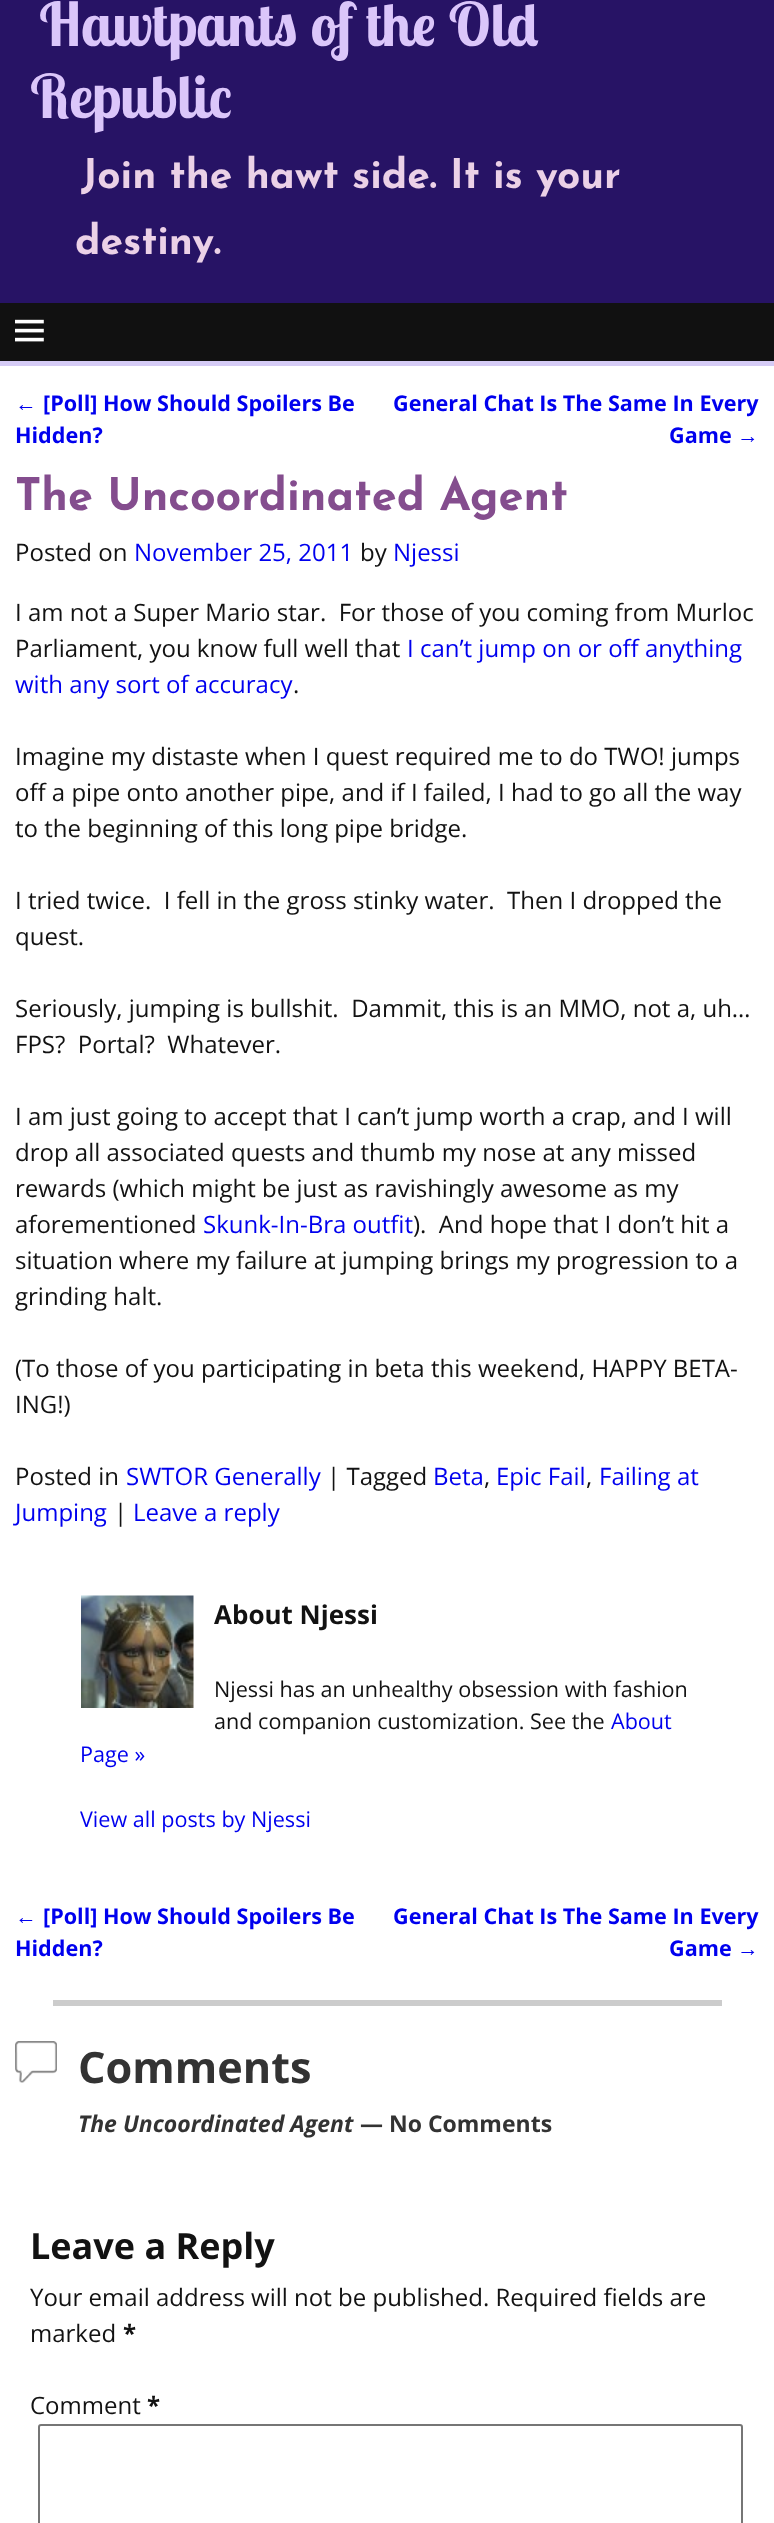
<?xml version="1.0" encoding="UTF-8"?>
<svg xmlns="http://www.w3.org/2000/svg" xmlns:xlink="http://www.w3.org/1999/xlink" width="774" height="2523">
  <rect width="100%" height="100%" fill="#ffffff" />
  <rect y="303" width="774" height="58" fill="#111111" />
  <rect y="361" width="774" height="5" fill="#d5cbf5" />
  <rect width="774" height="303" fill="#271365" />
  <image x="15" y="319" width="29" height="23" xlink:href="image1.png" />
  <image x="81" y="1595" width="113" height="113" xlink:href="image2.png" />
  <rect x="53" y="2000" width="669" height="6" fill="#cccccc" />
  <image x="15" y="2041" width="42" height="42" xlink:href="image3.png" />
  <rect x="39" y="2425" width="703" height="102" rx="2" fill="none" stroke="#767676" stroke-width="2" />
  <text x="39" y="46" style="font-family: Lobster Two; font-size: 60px; font-weight: bold; fill: #dbc6fa">Hawtpants of the Old</text>
  <text x="30" y="118" style="font-family: Lobster Two; font-size: 60px; font-weight: bold; fill: #dbc6fa">Republic</text>
  <text x="81" y="188" style="font-family: Josefin Sans; font-size: 40.75px; font-weight: bold; fill: #ebd1e7">Join the hawt side. It is your</text>
  <text x="75" y="254" style="font-family: Josefin Sans; font-size: 40.75px; font-weight: bold; fill: #ebd1e7">destiny.</text>
  <text x="15" y="411" style="font-family: Liberation Sans; font-size: 21.6px; fill: #0000ee">←</text>
  <text x="43" y="411" style="font-family: Open Sans; font-size: 21.6px; font-weight: bold; fill: #0000ee">[Poll] How Should Spoilers Be</text>
  <text x="15" y="443" style="font-family: Open Sans; font-size: 21.6px; font-weight: bold; fill: #0000ee">Hidden?</text>
  <text x="393" y="411" style="font-family: Open Sans; font-size: 21.6px; font-weight: bold; fill: #0000ee">General Chat Is The Same In Every</text>
  <text x="669" y="443" style="font-family: Open Sans; font-size: 21.6px; font-weight: bold; fill: #0000ee">Game</text>
  <text x="737" y="443" style="font-family: Liberation Sans; font-size: 21.6px; fill: #0000ee">→</text>
  <text x="15" y="510" style="font-family: Josefin Sans; font-size: 45px; font-weight: bold; fill: #844d8e">The Uncoordinated Agent</text>
  <text x="15" y="561" style="font-family: Open Sans; font-size: 24px; fill: #121212">Posted on</text>
  <text x="134" y="561" style="font-family: Open Sans; font-size: 24px; fill: #0000ee">November 25, 2011</text>
  <text x="360" y="561" style="font-family: Open Sans; font-size: 24px; fill: #121212">by</text>
  <text x="393" y="561" style="font-family: Open Sans; font-size: 24px; fill: #0000ee">Njessi</text>
  <text x="15" y="621" style="font-family: Open Sans; font-size: 24px; fill: #121212" xml:space="preserve">I am not a Super Mario star.  For those of you coming from Murloc</text>
  <text x="15" y="657" style="font-family: Open Sans; font-size: 24px; fill: #121212">Parliament, you know full well that</text>
  <text x="407" y="657" style="font-family: Open Sans; font-size: 24px; fill: #0000ee">I can’t jump on or off anything</text>
  <text x="15" y="693" style="font-family: Open Sans; font-size: 24px; fill: #0000ee">with any sort of accuracy</text>
  <text x="293" y="693" style="font-family: Open Sans; font-size: 24px; fill: #121212">.</text>
  <text x="15" y="765" style="font-family: Open Sans; font-size: 24px; fill: #121212">Imagine my distaste when I quest required me to do TWO! jumps</text>
  <text x="15" y="801" style="font-family: Open Sans; font-size: 24px; fill: #121212">off a pipe onto another pipe, and if I failed, I had to go all the way</text>
  <text x="15" y="837" style="font-family: Open Sans; font-size: 24px; fill: #121212">to the beginning of this long pipe bridge.</text>
  <text x="15" y="909" style="font-family: Open Sans; font-size: 24px; fill: #121212" xml:space="preserve">I tried twice.  I fell in the gross stinky water.  Then I dropped the</text>
  <text x="15" y="945" style="font-family: Open Sans; font-size: 24px; fill: #121212">quest.</text>
  <text x="15" y="1017" style="font-family: Open Sans; font-size: 24px; fill: #121212" xml:space="preserve">Seriously, jumping is bullshit.  Dammit, this is an MMO, not a, uh…</text>
  <text x="15" y="1053" style="font-family: Open Sans; font-size: 24px; fill: #121212" xml:space="preserve">FPS?  Portal?  Whatever.</text>
  <text x="15" y="1125" style="font-family: Open Sans; font-size: 24px; fill: #121212">I am just going to accept that I can’t jump worth a crap, and I will</text>
  <text x="15" y="1161" style="font-family: Open Sans; font-size: 24px; fill: #121212">drop all associated quests and thumb my nose at any missed</text>
  <text x="15" y="1197" style="font-family: Open Sans; font-size: 24px; fill: #121212">rewards (which might be just as ravishingly awesome as my</text>
  <text x="15" y="1233" style="font-family: Open Sans; font-size: 24px; fill: #121212">aforementioned</text>
  <text x="203" y="1233" style="font-family: Open Sans; font-size: 24px; fill: #0000ee">Skunk-In-Bra outfit</text>
  <text x="413" y="1233" style="font-family: Open Sans; font-size: 24px; fill: #121212" xml:space="preserve">).  And hope that I don’t hit a</text>
  <text x="15" y="1269" style="font-family: Open Sans; font-size: 24px; fill: #121212">situation where my failure at jumping brings my progression to a</text>
  <text x="15" y="1305" style="font-family: Open Sans; font-size: 24px; fill: #121212">grinding halt.</text>
  <text x="15" y="1377" style="font-family: Open Sans; font-size: 24px; fill: #121212">(To those of you participating in beta this weekend, HAPPY BETA-</text>
  <text x="15" y="1413" style="font-family: Open Sans; font-size: 24px; fill: #121212">ING!)</text>
  <text x="15" y="1485" style="font-family: Open Sans; font-size: 24px; fill: #121212">Posted in</text>
  <text x="126" y="1485" style="font-family: Open Sans; font-size: 24px; fill: #0000ee">SWTOR Generally</text>
  <text x="327" y="1485" style="font-family: Open Sans; font-size: 24px; fill: #121212">| Tagged</text>
  <text x="433" y="1485" style="font-family: Open Sans; font-size: 24px; fill: #0000ee">Beta</text>
  <text x="484" y="1485" style="font-family: Open Sans; font-size: 24px; fill: #121212">,</text>
  <text x="496" y="1485" style="font-family: Open Sans; font-size: 24px; fill: #0000ee">Epic Fail</text>
  <text x="586" y="1485" style="font-family: Open Sans; font-size: 24px; fill: #121212">,</text>
  <text x="599" y="1485" style="font-family: Open Sans; font-size: 24px; fill: #0000ee">Failing at</text>
  <text x="15" y="1521" style="font-family: Open Sans; font-size: 24px; fill: #0000ee">Jumping</text>
  <text x="114" y="1521" style="font-family: Open Sans; font-size: 24px; fill: #121212">|</text>
  <text x="133" y="1521" style="font-family: Open Sans; font-size: 24px; fill: #0000ee">Leave a reply</text>
  <text x="214" y="1624" style="font-family: Open Sans; font-size: 26px; font-weight: bold; fill: #121212">About Njessi</text>
  <text x="214" y="1697" style="font-family: Open Sans; font-size: 21.6px; fill: #121212">Njessi has an unhealthy obsession with fashion</text>
  <text x="214" y="1729" style="font-family: Open Sans; font-size: 21.6px; fill: #121212">and companion customization. See the</text>
  <text x="611" y="1729" style="font-family: Open Sans; font-size: 21.6px; fill: #0000ee">About</text>
  <text x="80" y="1762" style="font-family: Open Sans; font-size: 21.6px; fill: #0000ee">Page »</text>
  <text x="80" y="1827" style="font-family: Open Sans; font-size: 21.6px; fill: #0000ee">View all posts by Njessi</text>
  <text x="15" y="1924" style="font-family: Liberation Sans; font-size: 21.6px; fill: #0000ee">←</text>
  <text x="43" y="1924" style="font-family: Open Sans; font-size: 21.6px; font-weight: bold; fill: #0000ee">[Poll] How Should Spoilers Be</text>
  <text x="15" y="1956" style="font-family: Open Sans; font-size: 21.6px; font-weight: bold; fill: #0000ee">Hidden?</text>
  <text x="393" y="1924" style="font-family: Open Sans; font-size: 21.6px; font-weight: bold; fill: #0000ee">General Chat Is The Same In Every</text>
  <text x="669" y="1956" style="font-family: Open Sans; font-size: 21.6px; font-weight: bold; fill: #0000ee">Game</text>
  <text x="737" y="1956" style="font-family: Liberation Sans; font-size: 21.6px; fill: #0000ee">→</text>
  <text x="78" y="2083" style="font-family: Open Sans; font-size: 43.25px; font-weight: bold; fill: #333333">Comments</text>
  <text x="78" y="2132" style="font-family: Open Sans; font-size: 23px; font-weight: bold; font-style: italic; fill: #333333">The Uncoordinated Agent</text>
  <text x="360" y="2132" style="font-family: Open Sans; font-size: 23px; font-weight: bold; fill: #333333">— No Comments</text>
  <text x="30" y="2259" style="font-family: Open Sans; font-size: 36px; font-weight: bold; fill: #121212">Leave a Reply</text>
  <text x="30" y="2306" style="font-family: Open Sans; font-size: 24px; fill: #121212">Your email address will not be published. Required fields are</text>
  <text x="30" y="2342" style="font-family: Open Sans; font-size: 24px; fill: #121212">marked</text>
  <text x="123" y="2342" style="font-family: Open Sans; font-size: 24px; font-weight: bold; fill: #121212">*</text>
  <text x="30" y="2414" style="font-family: Open Sans; font-size: 24px; fill: #121212">Comment</text>
  <text x="147" y="2414" style="font-family: Open Sans; font-size: 24px; font-weight: bold; fill: #121212">*</text>
</svg>
